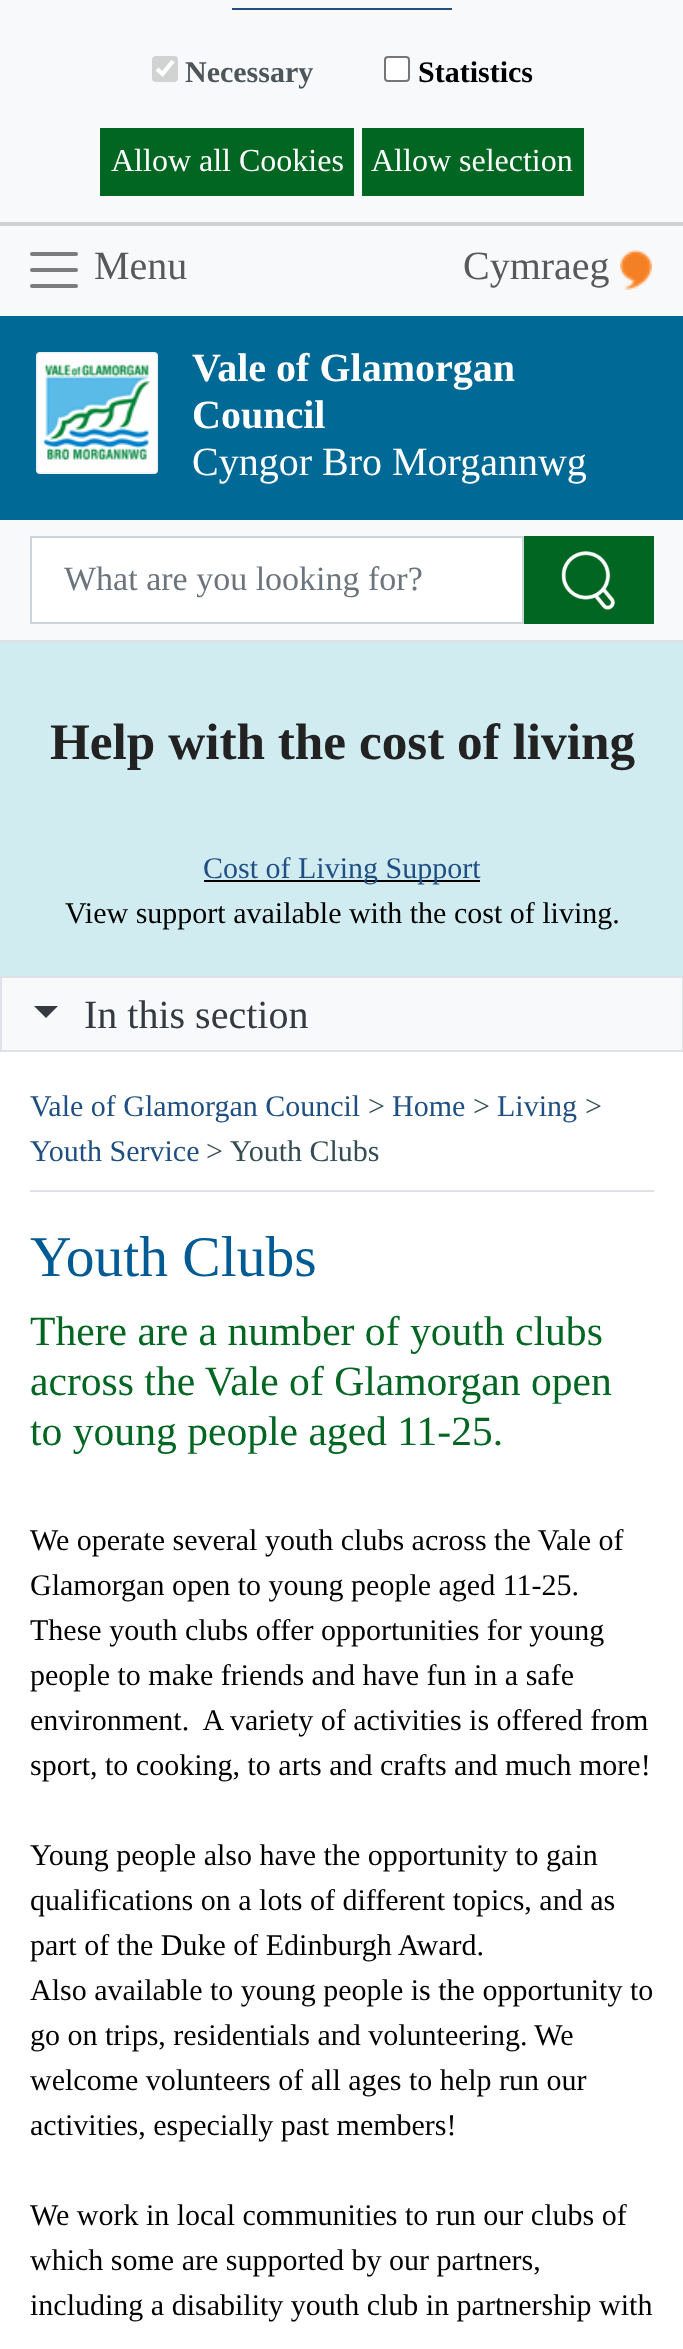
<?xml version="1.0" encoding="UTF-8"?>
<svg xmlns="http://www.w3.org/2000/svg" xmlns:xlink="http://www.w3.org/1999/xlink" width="683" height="2349">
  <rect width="100%" height="100%" fill="#ffffff" />
  <rect width="683" height="222" fill="#f8f9fa" />
  <rect y="222" width="683" height="4" fill="#d0d0d0" />
  <rect x="232" y="8" width="220" height="2" fill="#1f4f82" />
  <rect x="152" y="56" width="26" height="26" rx="4" fill="#d1d2d2" />
  <path d="M 157 69 l 5.5 5 l 10.5 -13" fill="none" stroke="#ffffff" stroke-width="4.2" />
  <rect x="385" y="57" width="24" height="24" rx="3" fill="#ffffff" stroke="#767676" stroke-width="2" />
  <rect x="100" y="128" width="254" height="68" fill="#006622" />
  <rect x="362" y="128" width="222" height="68" fill="#006622" />
  <rect y="226" width="683" height="90" fill="#f8f9fa" />
  <path d="M 32 254 h 44 m -44 16 h 44 m -44 16 h 44" fill="none" stroke="#7c7d7d" stroke-width="4" stroke-linecap="round" />
  <image x="620" y="250" width="32" height="40" xlink:href="image1.png" />
  <rect y="316" width="683" height="204" fill="#006996" />
  <image x="36" y="352" width="122" height="122" xlink:href="image2.png" />
  <rect y="520" width="683" height="120" fill="#f8f9fa" />
  <rect y="640" width="683" height="2" fill="#dee2e6" />
  <rect x="31" y="537" width="492" height="86" fill="#ffffff" stroke="#ced4da" stroke-width="2" />
  <rect x="524" y="536" width="130" height="88" fill="#006622" />
  <image x="561" y="550" width="55" height="60" xlink:href="image3.png" />
  <rect y="642" width="683" height="334" fill="#d1ecf1" />
  <rect x="204" y="880" width="276" height="2" fill="#000000" />
  <rect x="1" y="977" width="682" height="74" fill="#f8f9fa" stroke="#dee2e6" stroke-width="2" />
  <path d="M 34 1006 h 24 l -12 12 z" fill="#343a40" />
  <rect x="30" y="1190" width="624" height="2" fill="#dee2e6" />
  <text x="185" y="82" style="font-family: Liberation Serif; font-size: 30px; font-weight: bold; fill: #4e565a">Necessary</text>
  <text x="418" y="82" style="font-family: Liberation Serif; font-size: 30px; font-weight: bold; fill: #000000">Statistics</text>
  <text x="111" y="171" style="font-family: Liberation Serif; font-size: 32px; fill: #ffffff">Allow all Cookies</text>
  <text x="371" y="171" style="font-family: Liberation Serif; font-size: 32px; fill: #ffffff">Allow selection</text>
  <text x="94" y="279" style="font-family: Liberation Serif; font-size: 40px; fill: #595959">Menu</text>
  <text x="463" y="279" style="font-family: Liberation Serif; font-size: 40px; fill: #595959">Cymraeg</text>
  <text x="192" y="381" style="font-family: Liberation Serif; font-size: 40px; font-weight: bold; fill: #ffffff">Vale of Glamorgan</text>
  <text x="192" y="428" style="font-family: Liberation Serif; font-size: 40px; font-weight: bold; fill: #ffffff">Council</text>
  <text x="192" y="475" style="font-family: Liberation Serif; font-size: 40px; fill: #ffffff">Cyngor Bro Morgannwg</text>
  <text x="64" y="590" style="font-family: Liberation Serif; font-size: 34px; fill: #6c757d">What are you looking for?</text>
  <text x="50" y="759" style="font-family: Liberation Serif; font-size: 51.25px; font-weight: bold; fill: #222222">Help with the cost of living</text>
  <text x="203" y="878" style="font-family: Liberation Serif; font-size: 30px; fill: #1f4f82">Cost of Living Support</text>
  <text x="65" y="923" style="font-family: Liberation Serif; font-size: 30px; fill: #000000">View support available with the cost of living.</text>
  <text x="84" y="1028" style="font-family: Liberation Serif; font-size: 40px; fill: #343a40">In this section</text>
  <text x="30" y="1116" style="font-family: Liberation Serif; font-size: 30px; fill: #1f4f82">Vale of Glamorgan Council</text>
  <text x="368" y="1116" style="font-family: Liberation Serif; font-size: 30px; fill: #344d52">&gt;</text>
  <text x="392" y="1116" style="font-family: Liberation Serif; font-size: 30px; fill: #1f4f82">Home</text>
  <text x="473" y="1116" style="font-family: Liberation Serif; font-size: 30px; fill: #344d52">&gt;</text>
  <text x="497" y="1116" style="font-family: Liberation Serif; font-size: 30px; fill: #1f4f82">Living</text>
  <text x="585" y="1116" style="font-family: Liberation Serif; font-size: 30px; fill: #344d52">&gt;</text>
  <text x="30" y="1161" style="font-family: Liberation Serif; font-size: 30px; fill: #1f4f82">Youth Service</text>
  <text x="206" y="1161" style="font-family: Liberation Serif; font-size: 30px; fill: #344d52">&gt;</text>
  <text x="230" y="1161" style="font-family: Liberation Serif; font-size: 30px; fill: #344d52">Youth Clubs</text>
  <text x="30" y="1276" style="font-family: Liberation Serif; font-size: 57.5px; fill: #005b94">Youth Clubs</text>
  <text x="30" y="1345" style="font-family: Liberation Serif; font-size: 41.6px; fill: #006622">There are a number of youth clubs</text>
  <text x="30" y="1395" style="font-family: Liberation Serif; font-size: 41.6px; fill: #006622">across the Vale of Glamorgan open</text>
  <text x="30" y="1445" style="font-family: Liberation Serif; font-size: 41.6px; fill: #006622">to young people aged 11-25.</text>
  <text x="30" y="1550" style="font-family: Liberation Serif; font-size: 30px; fill: #000000">We operate several youth clubs across the Vale of</text>
  <text x="30" y="1595" style="font-family: Liberation Serif; font-size: 30px; fill: #000000">Glamorgan open to young people aged 11-25.</text>
  <text x="30" y="1640" style="font-family: Liberation Serif; font-size: 30px; fill: #000000">These youth clubs offer opportunities for young</text>
  <text x="30" y="1685" style="font-family: Liberation Serif; font-size: 30px; fill: #000000">people to make friends and have fun in a safe</text>
  <text x="30" y="1730" style="font-family: Liberation Serif; font-size: 30px; fill: #000000" xml:space="preserve">environment.  A variety of activities is offered from</text>
  <text x="30" y="1775" style="font-family: Liberation Serif; font-size: 30px; fill: #000000">sport, to cooking, to arts and crafts and much more!</text>
  <text x="30" y="1865" style="font-family: Liberation Serif; font-size: 30px; fill: #000000">Young people also have the opportunity to gain</text>
  <text x="30" y="1910" style="font-family: Liberation Serif; font-size: 30px; fill: #000000">qualifications on a lots of different topics, and as</text>
  <text x="30" y="1955" style="font-family: Liberation Serif; font-size: 30px; fill: #000000">part of the Duke of Edinburgh Award.</text>
  <text x="30" y="2000" style="font-family: Liberation Serif; font-size: 30px; fill: #000000">Also available to young people is the opportunity to</text>
  <text x="30" y="2045" style="font-family: Liberation Serif; font-size: 30px; fill: #000000">go on trips, residentials and volunteering. We</text>
  <text x="30" y="2090" style="font-family: Liberation Serif; font-size: 30px; fill: #000000">welcome volunteers of all ages to help run our</text>
  <text x="30" y="2135" style="font-family: Liberation Serif; font-size: 30px; fill: #000000">activities, especially past members!</text>
  <text x="30" y="2225" style="font-family: Liberation Serif; font-size: 30px; fill: #000000">We work in local communities to run our clubs of</text>
  <text x="30" y="2270" style="font-family: Liberation Serif; font-size: 30px; fill: #000000">which some are supported by our partners,</text>
  <text x="30" y="2315" style="font-family: Liberation Serif; font-size: 30px; fill: #000000">including a disability youth club in partnership with</text>
</svg>
